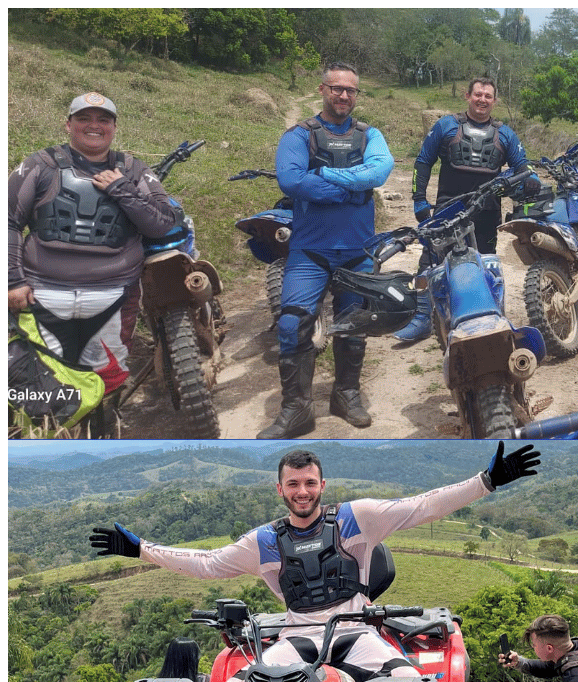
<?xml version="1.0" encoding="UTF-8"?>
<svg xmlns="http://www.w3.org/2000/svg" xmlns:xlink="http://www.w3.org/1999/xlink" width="578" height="682">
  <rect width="100%" height="100%" fill="#ffffff" />
  <image x="8" y="8" width="570" height="674" xlink:href="image1.png" />
</svg>
